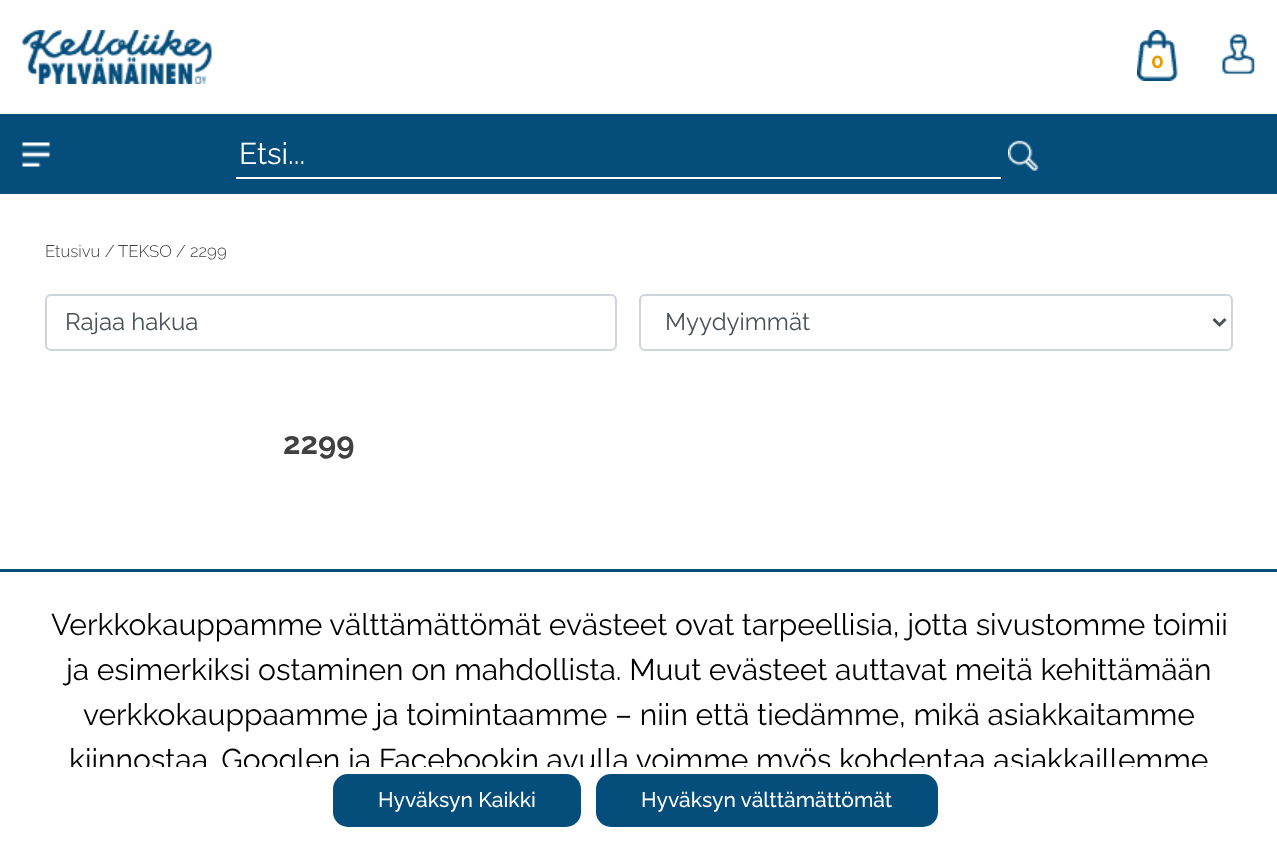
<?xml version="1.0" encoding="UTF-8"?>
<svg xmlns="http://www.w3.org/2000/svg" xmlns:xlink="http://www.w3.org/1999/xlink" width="1277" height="863">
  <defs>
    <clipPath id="clip1"><rect x="45" y="602" width="1188" height="165" /></clipPath>
  </defs>
  <rect width="100%" height="100%" fill="#ffffff" />
  <image x="22" y="30" width="190" height="54" xlink:href="image1.png" />
  <image x="1137" y="30" width="41" height="51" xlink:href="image2.png" />
  <image x="1222" y="34" width="34" height="41" xlink:href="image3.png" />
  <rect y="114" width="1277" height="80" fill="#054e7b" />
  <image x="22" y="142" width="28" height="25" xlink:href="image4.png" />
  <rect x="236" y="177" width="765" height="2" fill="#ffffff" />
  <image x="1008" y="140" width="31" height="31" xlink:href="image5.png" />
  <rect x="46" y="295" width="570" height="55" rx="5" fill="none" stroke="#ced4da" stroke-width="2" />
  <rect x="640" y="295" width="592" height="55" rx="5" fill="none" stroke="#ced4da" stroke-width="2" />
  <path d="M 1213.5 319 l 6 6 l 6 -6" fill="none" stroke="#495057" stroke-width="3" />
  <rect y="569" width="1277" height="3" fill="#054e7b" />
  <rect x="333" y="774" width="248" height="53" rx="15" fill="#054e7b" />
  <rect x="596" y="774" width="342" height="53" rx="15" fill="#054e7b" />
  <text x="1151" y="68" style="font-family: Raleway; font-size: 21px; font-weight: bold; fill: #e89e00">0</text>
  <text x="239" y="164" style="font-family: Raleway; font-size: 30px; fill: #ffffff">Etsi...</text>
  <text x="45" y="257" style="font-family: Raleway; font-size: 16.75px; font-weight: 300; fill: #414141">Etusivu /</text>
  <text x="118" y="257" style="font-family: Raleway; font-size: 16.75px; font-weight: 300; fill: #414141">TEKSO / 2299</text>
  <text x="65" y="330" style="font-family: Raleway; font-size: 24px; fill: #495057">Rajaa hakua</text>
  <text x="665" y="330" style="font-family: Raleway; font-size: 24px; fill: #495057">Myydyimmät</text>
  <text x="283" y="454" style="font-family: Raleway; font-size: 31px; font-weight: bold; fill: #414141">2299</text>
  <text x="51" y="635" style="font-family: Raleway; font-size: 30px; fill: #000000">Verkkokauppamme välttämättömät evästeet ovat tarpeellisia, jotta sivustomme toimii</text>
  <text x="66" y="680" style="font-family: Raleway; font-size: 30px; fill: #000000">ja esimerkiksi ostaminen on mahdollista. Muut evästeet auttavat meitä kehittämään</text>
  <text x="83" y="725" style="font-family: Raleway; font-size: 30px; fill: #000000">verkkokauppaamme ja toimintaamme – niin että tiedämme, mikä asiakkaitamme</text>
  <g clip-path="url(#clip1)">
    <text x="69" y="770" style="font-family: Raleway; font-size: 30px; fill: #000000">kiinnostaa. Googlen ja Facebookin avulla voimme myös kohdentaa asiakkaillemme</text>
  </g>
  <text x="378" y="807" style="font-family: Raleway; font-size: 21px; font-weight: 500; fill: #ffffff">Hyväksyn Kaikki</text>
  <text x="641" y="807" style="font-family: Raleway; font-size: 21px; font-weight: 500; fill: #ffffff">Hyväksyn välttämättömät</text>
</svg>
